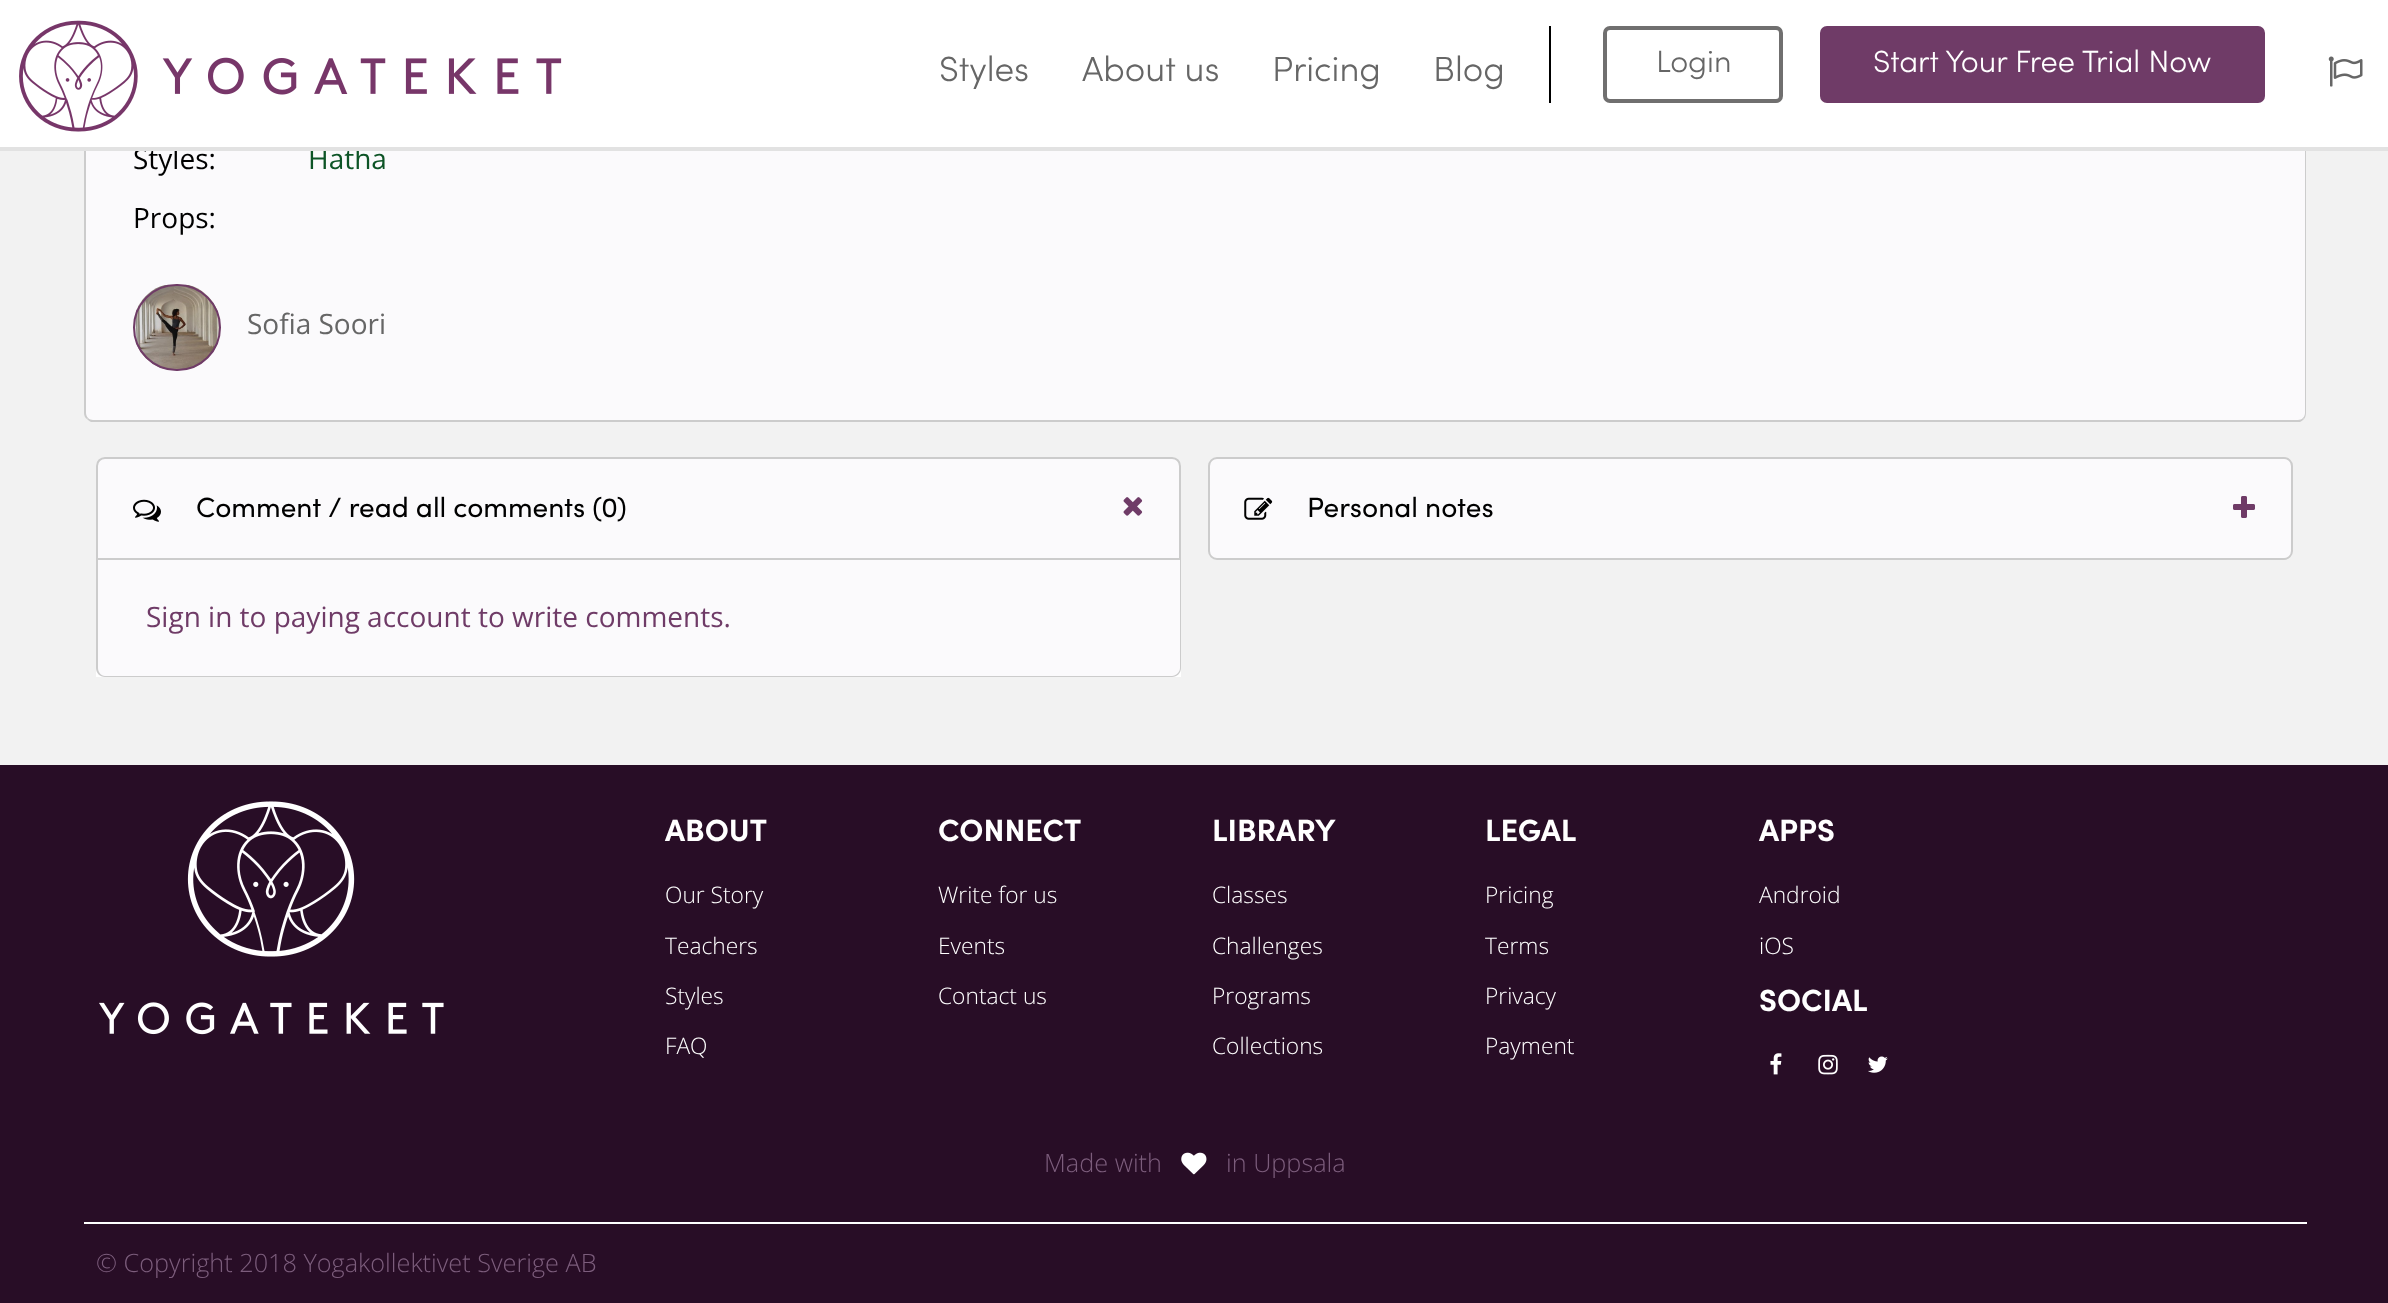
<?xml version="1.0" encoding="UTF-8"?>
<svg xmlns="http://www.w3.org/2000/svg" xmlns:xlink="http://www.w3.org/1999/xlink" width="2388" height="1303">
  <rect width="100%" height="100%" fill="#f2f2f2" />
  <path d="M 93 -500 h 2205 c 4 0 7 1 7 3 v 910 c 0 4 -3 7 -7 7 h -2205 c -4 0 -7 -3 -7 -7 v -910 c 0 -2 3 -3 7 -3 z" fill="#fbfafc" />
  <path d="M 2305 -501 l 1 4 v 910 c 0 2 -1 5 -2 6 l -1 -1 c 1 -1 2 -3 2 -5 v -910 l -1 -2 z" fill="#cccccc" />
  <path d="M 91 422 c -2 -1 -3 -2 -4 -3 l 1 -1 c 1 1 3 2 5 2 h 2205 c 2 0 4 -1 5 -2 l 1 1 c -1 1 -2 2 -4 3 z" fill="#cccccc" />
  <path d="M 84 -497 v 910 c 0 2 1 5 3 6 l 1 -1 c -1 -1 -2 -3 -2 -5 v -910 v -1 l -1 -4 z" fill="#cccccc" />
  <rect width="2388" height="147" fill="#ffffff" />
  <image x="19" y="20" width="543" height="112" xlink:href="image1.png" />
  <rect x="1549" y="26" width="2" height="77" fill="#000000" />
  <rect x="1605" y="28" width="176" height="73" rx="5" fill="none" stroke="#706f6f" stroke-width="4" />
  <rect x="1822" y="28" width="441" height="73" rx="5" fill="#6f3b67" stroke="#6f3b67" stroke-width="4" />
  <image x="2328" y="56" width="35" height="31" xlink:href="image2.png" />
  <image x="133" y="285" width="88" height="84" xlink:href="image3.png" />
  <rect x="134" y="285" width="86" height="85" rx="42.5" fill="none" stroke="#6f3b67" stroke-width="2" />
  <path d="M 105 458 h 1067 c 4.5 0 8 3.5 8 8 v 93 h -1083 v -93 c 0 -4.5 3.5 -8 8 -8 z" fill="#fbfafc" stroke="#cccccc" stroke-width="2" />
  <image x="133" y="499" width="28" height="23" xlink:href="image4.png" />
  <image x="1123" y="497" width="20" height="19" xlink:href="image5.png" />
  <rect x="96" y="668" width="1085" height="9" fill="#ffffff" />
  <path d="M 96 560 h 1085 v 108 c 0 5 -4 9 -9 9 h -1067 c -5 0 -9 -4 -9 -9 z" fill="#fbfafc" />
  <path d="M 96 560 h 1085 v 108 c 0 5 -4 9 -9 9 h -1067 c -5 0 -9 -4 -9 -9 z m 2 0 h 1082 v 108 c 0 4 -4 8 -8 8 h -1067 c -4 0 -7 -4 -7 -8 z" fill="#cccccc" fill-rule="evenodd" />
  <rect x="1209" y="458" width="1083" height="101" rx="8" fill="#fbfafc" stroke="#cccccc" stroke-width="2" />
  <image x="1244" y="497" width="29" height="23" xlink:href="image6.png" />
  <image x="2233" y="496" width="22" height="22" xlink:href="image7.png" />
  <rect y="765" width="2388" height="538" fill="#280d26" />
  <image x="99" y="801" width="345" height="234" xlink:href="image8.png" />
  <image x="1770" y="1053" width="12" height="22" xlink:href="image9.png" />
  <image x="1818" y="1054" width="20" height="21" xlink:href="image10.png" />
  <image x="1868" y="1056" width="20" height="17" xlink:href="image11.png" />
  <image x="1181" y="1152" width="26" height="23" xlink:href="image12.png" />
  <rect x="84" y="1222" width="2223" height="2" fill="#ffffff" />
  <text x="939" y="81" style="font-family: Sofia; font-size: 35px; font-weight: 300; fill: #666666">Styles</text>
  <text x="1082" y="81" style="font-family: Sofia; font-size: 35px; font-weight: 300; fill: #666666">About us</text>
  <text x="1272" y="81" style="font-family: Sofia; font-size: 35px; font-weight: 300; fill: #666666">Pricing</text>
  <text x="1433" y="81" style="font-family: Sofia; font-size: 35px; font-weight: 300; fill: #666666">Blog</text>
  <text x="1656" y="72" style="font-family: Sofia; font-size: 30.75px; font-weight: 300; fill: #666666">Login</text>
  <text x="1873" y="72" style="font-family: Sofia; font-size: 30.75px; font-weight: 300; fill: #ffffff">Start Your Free Trial Now</text>
  <text x="133" y="169" style="font-family: Open Sans; font-size: 28px; fill: #000000">Styles:</text>
  <text x="308" y="169" style="font-family: Open Sans; font-size: 28px; fill: #0d5426">Hatha</text>
  <rect y="147" width="2388" height="4" fill="#e2e2e2" />
  <text x="133" y="228" style="font-family: Open Sans; font-size: 28px; fill: #000000">Props:</text>
  <text x="247" y="334" style="font-family: Open Sans; font-size: 28px; fill: #666666">Sofia Soori</text>
  <text x="196" y="517" style="font-family: Sofia; font-size: 28px; fill: #000000">Comment / read all comments (0)</text>
  <text x="146" y="627" style="font-family: Open Sans; font-size: 28px; fill: #6f3b67">Sign in to paying account to write comments.</text>
  <text x="1307" y="517" style="font-family: Sofia; font-size: 28px; fill: #000000">Personal notes</text>
  <text x="665" y="841" style="font-family: Sofia; font-size: 30.75px; font-weight: bold; fill: #ffffff">ABOUT</text>
  <text x="665" y="903" style="font-family: Open Sans; font-size: 22.75px; font-weight: 300; fill: #ffffff">Our Story</text>
  <text x="665" y="954" style="font-family: Open Sans; font-size: 22.75px; font-weight: 300; fill: #ffffff">Teachers</text>
  <text x="665" y="1004" style="font-family: Open Sans; font-size: 22.75px; font-weight: 300; fill: #ffffff">Styles</text>
  <text x="665" y="1054" style="font-family: Open Sans; font-size: 22.75px; font-weight: 300; fill: #ffffff">FAQ</text>
  <text x="938" y="841" style="font-family: Sofia; font-size: 30.75px; font-weight: bold; fill: #ffffff">CONNECT</text>
  <text x="938" y="903" style="font-family: Open Sans; font-size: 22.75px; font-weight: 300; fill: #ffffff">Write for us</text>
  <text x="938" y="954" style="font-family: Open Sans; font-size: 22.75px; font-weight: 300; fill: #ffffff">Events</text>
  <text x="938" y="1004" style="font-family: Open Sans; font-size: 22.75px; font-weight: 300; fill: #ffffff">Contact us</text>
  <text x="1212" y="841" style="font-family: Sofia; font-size: 30.75px; font-weight: bold; fill: #ffffff">LIBRARY</text>
  <text x="1212" y="903" style="font-family: Open Sans; font-size: 22.75px; font-weight: 300; fill: #ffffff">Classes</text>
  <text x="1212" y="954" style="font-family: Open Sans; font-size: 22.75px; font-weight: 300; fill: #ffffff">Challenges</text>
  <text x="1212" y="1004" style="font-family: Open Sans; font-size: 22.75px; font-weight: 300; fill: #ffffff">Programs</text>
  <text x="1212" y="1054" style="font-family: Open Sans; font-size: 22.75px; font-weight: 300; fill: #ffffff">Collections</text>
  <text x="1485" y="841" style="font-family: Sofia; font-size: 30.75px; font-weight: bold; fill: #ffffff">LEGAL</text>
  <text x="1485" y="903" style="font-family: Open Sans; font-size: 22.75px; font-weight: 300; fill: #ffffff">Pricing</text>
  <text x="1485" y="954" style="font-family: Open Sans; font-size: 22.75px; font-weight: 300; fill: #ffffff">Terms</text>
  <text x="1485" y="1004" style="font-family: Open Sans; font-size: 22.75px; font-weight: 300; fill: #ffffff">Privacy</text>
  <text x="1485" y="1054" style="font-family: Open Sans; font-size: 22.75px; font-weight: 300; fill: #ffffff">Payment</text>
  <text x="1759" y="841" style="font-family: Sofia; font-size: 30.75px; font-weight: bold; fill: #ffffff">APPS</text>
  <text x="1759" y="903" style="font-family: Open Sans; font-size: 22.75px; font-weight: 300; fill: #ffffff">Android</text>
  <text x="1759" y="954" style="font-family: Open Sans; font-size: 22.75px; font-weight: 300; fill: #ffffff">iOS</text>
  <text x="1759" y="1011" style="font-family: Sofia; font-size: 30.75px; font-weight: bold; fill: #ffffff">SOCIAL</text>
  <text x="1044" y="1172" style="font-family: Open Sans; font-size: 25.25px; font-weight: 300; fill: #7c5d7c">Made with</text>
  <text x="1226" y="1172" style="font-family: Open Sans; font-size: 25.25px; font-weight: 300; fill: #7c5d7c">in Uppsala</text>
  <text x="96" y="1272" style="font-family: Open Sans; font-size: 25.25px; font-weight: 300; fill: #7c5d7c">© Copyright 2018 Yogakollektivet Sverige AB</text>
</svg>
